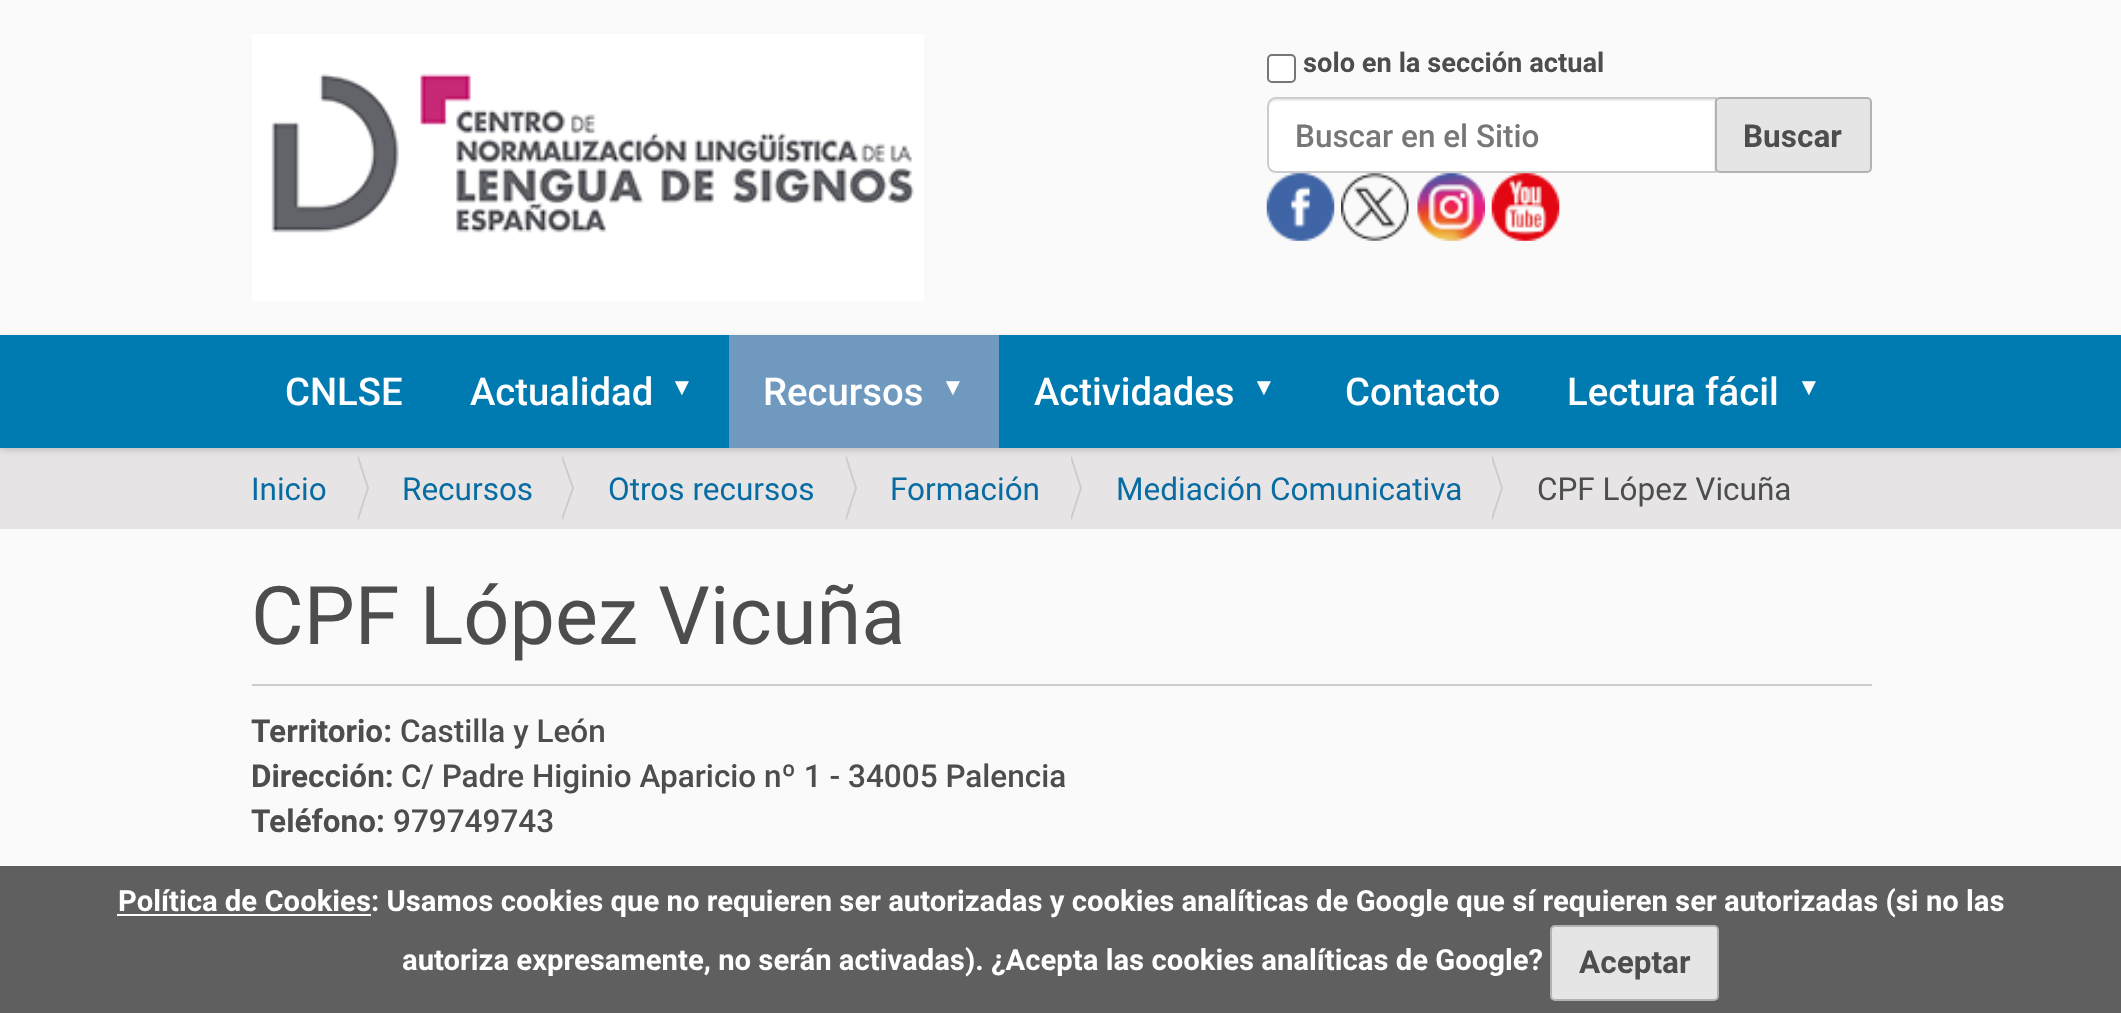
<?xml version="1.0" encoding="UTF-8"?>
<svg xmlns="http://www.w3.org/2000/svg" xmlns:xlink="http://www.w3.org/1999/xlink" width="2121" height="1013">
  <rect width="100%" height="100%" fill="#fafafa" />
  <image x="252" y="34" width="672" height="267" xlink:href="image1.png" />
  <rect x="1268" y="55" width="27" height="27" rx="4" fill="#ffffff" stroke="#767676" stroke-width="2" />
  <path d="M 1276 97 h 441 v 76 h -441 c -5 0 -9 -4 -9 -9 v -58 c 0 -5 4 -9 9 -9 z" fill="#ffffff" />
  <path d="M 1276 101 h 438 v 70 h 1 v -72 h -439 c -4 0 -7 3 -7 7 v 2 c 0 -4 3 -7 7 -7 z" fill="#ececec" />
  <path d="M 1276 98 h 440 v 74 h -440 c -4.5 0 -8 -3.5 -8 -8 v -58 c 0 -4.5 3.5 -8 8 -8 z" fill="none" stroke="#cccccc" stroke-width="2" />
  <rect x="1716" y="98" width="155" height="74" rx="4" fill="#e5e5e5" stroke="#b2b2b2" stroke-width="2" />
  <image x="1266" y="173" width="69" height="68" xlink:href="image2.png" />
  <image x="1341" y="173" width="68" height="68" xlink:href="image3.png" />
  <image x="1417" y="173" width="68" height="68" xlink:href="image4.png" />
  <image x="1491" y="173" width="69" height="68" xlink:href="image5.png" />
  <rect y="448" width="2121" height="81" fill="#e6e4e4" />
  <rect y="338" width="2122" height="112" fill="#000000" fill-opacity="0.17" filter="blur(3.5px)" />
  <rect y="335" width="2121" height="113" fill="#007bb1" />
  <rect x="729" y="335" width="270" height="113" fill="#7099bf" />
  <path d="M 358 522 v -68 l 11 34 z" fill="#cccccc" />
  <path d="M 356 522 v -68 l 11 34 z" fill="#e6e4e4" />
  <path d="M 562 522 v -68 l 12 34 z" fill="#cccccc" />
  <path d="M 560 522 v -68 l 12 34 z" fill="#e6e4e4" />
  <path d="M 846 522 v -68 l 11 34 z" fill="#cccccc" />
  <path d="M 844 522 v -68 l 11 34 z" fill="#e6e4e4" />
  <path d="M 1071 522 v -68 l 11 34 z" fill="#cccccc" />
  <path d="M 1069 522 v -68 l 11 34 z" fill="#e6e4e4" />
  <path d="M 1492 522 v -68 l 11 34 z" fill="#cccccc" />
  <path d="M 1490 522 v -68 l 11 34 z" fill="#e6e4e4" />
  <rect x="252" y="684" width="1620" height="2" fill="#cccccc" />
  <rect x="365" y="929" width="355" height="2" fill="#cccccc" />
  <rect y="866" width="2121" height="147" fill="#565656" fill-opacity="0.95" />
  <rect x="117" y="914" width="254" height="2" fill="#ffffff" />
  <rect x="1551" y="926" width="167" height="74" rx="4" fill="#e5e5e5" stroke="#b2b2b2" stroke-width="2" />
  <text x="1303" y="72" style="font-family: Roboto; font-size: 27.25px; font-weight: bold; fill: #4d4d4d">solo en la sección actual</text>
  <text x="1295" y="147" style="font-family: Roboto; font-size: 31.5px; font-weight: 500; fill: #777777">Buscar en el Sitio</text>
  <text x="1743" y="147" style="font-family: Roboto; font-size: 31.5px; font-weight: bold; fill: #4d4d4d">Buscar</text>
  <text x="285" y="405" style="font-family: Roboto; font-size: 38.25px; font-weight: 500; fill: #ffffff">CNLSE</text>
  <text x="470" y="405" style="font-family: Roboto; font-size: 38.25px; font-weight: 500; fill: #ffffff">Actualidad</text>
  <text x="670" y="395" style="font-family: Liberation Sans; font-size: 24px; font-weight: bold; fill: #ffffff">▼</text>
  <text x="763" y="405" style="font-family: Roboto; font-size: 38.25px; font-weight: 500; fill: #ffffff">Recursos</text>
  <text x="941" y="395" style="font-family: Liberation Sans; font-size: 24px; font-weight: bold; fill: #ffffff">▼</text>
  <text x="1034" y="405" style="font-family: Roboto; font-size: 38.25px; font-weight: 500; fill: #ffffff">Actividades</text>
  <text x="1252" y="395" style="font-family: Liberation Sans; font-size: 24px; font-weight: bold; fill: #ffffff">▼</text>
  <text x="1345" y="405" style="font-family: Roboto; font-size: 38.25px; font-weight: 500; fill: #ffffff">Contacto</text>
  <text x="1567" y="405" style="font-family: Roboto; font-size: 38.25px; font-weight: 500; fill: #ffffff">Lectura fácil</text>
  <text x="1797" y="395" style="font-family: Liberation Sans; font-size: 24px; font-weight: bold; fill: #ffffff">▼</text>
  <text x="251" y="500" style="font-family: Roboto; font-size: 31.5px; fill: #086ca3">Inicio</text>
  <text x="402" y="500" style="font-family: Roboto; font-size: 31.5px; fill: #086ca3">Recursos</text>
  <text x="608" y="500" style="font-family: Roboto; font-size: 31.5px; fill: #086ca3">Otros recursos</text>
  <text x="890" y="500" style="font-family: Roboto; font-size: 31.5px; fill: #086ca3">Formación</text>
  <text x="1116" y="500" style="font-family: Roboto; font-size: 31.5px; fill: #086ca3">Mediación Comunicativa</text>
  <text x="1537" y="500" style="font-family: Roboto; font-size: 31.5px; fill: #4d4d4d">CPF López Vicuña</text>
  <text x="251" y="644" style="font-family: Roboto; font-size: 81px; fill: #4d4d4d">CPF López Vicuña</text>
  <text x="251" y="742" style="font-family: Roboto; font-size: 31.5px; font-weight: bold; fill: #4d4d4d">Territorio:</text>
  <text x="400" y="742" style="font-family: Roboto; font-size: 31.5px; font-weight: 500; fill: #4d4d4d">Castilla y León</text>
  <text x="251" y="787" style="font-family: Roboto; font-size: 31.5px; font-weight: bold; fill: #4d4d4d">Dirección:</text>
  <text x="401" y="787" style="font-family: Roboto; font-size: 31.5px; font-weight: 500; fill: #4d4d4d">C/ Padre Higinio Aparicio nº 1 - 34005 Palencia</text>
  <text x="251" y="832" style="font-family: Roboto; font-size: 31.5px; font-weight: bold; fill: #4d4d4d">Teléfono:</text>
  <text x="393" y="832" style="font-family: Roboto; font-size: 31.5px; font-weight: 500; fill: #4d4d4d">979749743</text>
  <text x="118" y="911" style="font-family: Roboto; font-size: 29.25px; font-weight: bold; fill: #ffffff">Política de Cookies: Usamos cookies que no requieren ser autorizadas y cookies analíticas de Google que sí requieren ser autorizadas (si no las</text>
  <text x="402" y="970" style="font-family: Roboto; font-size: 29.25px; font-weight: bold; fill: #ffffff">autoriza expresamente, no serán activadas). ¿Acepta las cookies analíticas de Google?</text>
  <text x="1579" y="973" style="font-family: Roboto; font-size: 31.5px; font-weight: bold; fill: #4d4d4d">Aceptar</text>
</svg>
